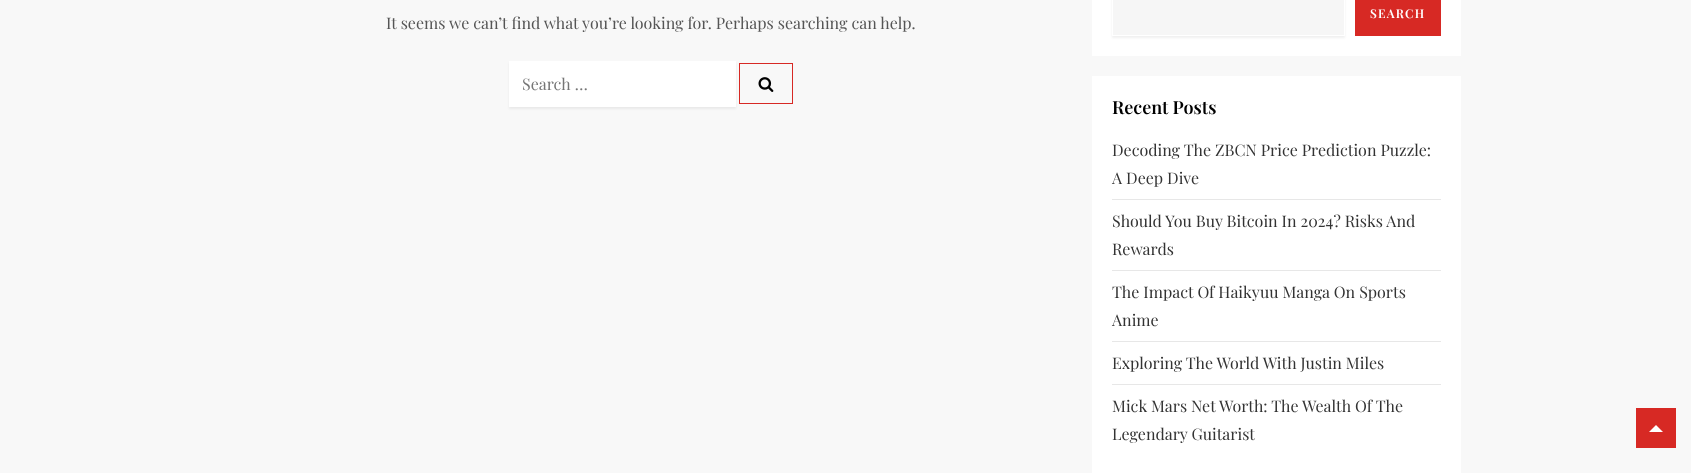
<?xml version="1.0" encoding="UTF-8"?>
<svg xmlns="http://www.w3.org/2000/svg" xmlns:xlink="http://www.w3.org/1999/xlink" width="1691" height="473">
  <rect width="100%" height="100%" fill="#f8f8f8" />
  <rect x="509" y="63" width="227" height="46" fill="#000000" fill-opacity="0.06" filter="blur(1px)" />
  <rect x="509" y="61" width="227" height="46" fill="#ffffff" />
  <rect x="739.5" y="63.5" width="53" height="40" fill="none" stroke="#d72924" />
  <image x="758" y="77" width="16" height="15" xlink:href="image1.png" />
  <rect x="1092" width="369" height="56" fill="#ffffff" />
  <rect x="1112" y="-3" width="233" height="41" fill="#000000" fill-opacity="0.06" filter="blur(1px)" />
  <rect x="1112.5" y="-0.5" width="232" height="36" fill="#f6f6f6" stroke="#ffffff" />
  <rect x="1355" width="86" height="36" fill="#d72924" />
  <rect x="1092" y="76" width="369" height="397" fill="#ffffff" />
  <rect x="1112" y="199" width="329" height="1" fill="#e7e7e7" />
  <rect x="1112" y="270" width="329" height="1" fill="#e7e7e7" />
  <rect x="1112" y="341" width="329" height="1" fill="#e7e7e7" />
  <rect x="1112" y="384" width="329" height="1" fill="#e7e7e7" />
  <rect x="1636" y="408" width="40" height="40" fill="#d72924" />
  <path d="M 1663 432 h -14 l 7 -7 z" fill="#ffffff" />
  <text x="386" y="29" style="font-family: Playfair Display; font-size: 16px; fill: #555555">It seems we can’t find what you’re looking for. Perhaps searching can help.</text>
  <text x="522" y="90" style="font-family: Playfair Display; font-size: 16px; fill: #757575">Search …</text>
  <text x="1370" y="18" style="font-family: Playfair Display; font-size: 12px; font-weight: 600; letter-spacing: 1.25px; fill: #ffffff">SEARCH</text>
  <text x="1112" y="114" style="font-family: Playfair Display; font-size: 18px; font-weight: 600; fill: #000000">Recent Posts</text>
  <text x="1112" y="156" style="font-family: Playfair Display; font-size: 16px; fill: #333333">Decoding The ZBCN Price Prediction Puzzle:</text>
  <text x="1112" y="184" style="font-family: Playfair Display; font-size: 16px; fill: #333333">A Deep Dive</text>
  <text x="1112" y="227" style="font-family: Playfair Display; font-size: 16px; fill: #333333">Should You Buy Bitcoin In 2024? Risks And</text>
  <text x="1112" y="255" style="font-family: Playfair Display; font-size: 16px; fill: #333333">Rewards</text>
  <text x="1112" y="298" style="font-family: Playfair Display; font-size: 16px; fill: #333333">The Impact Of Haikyuu Manga On Sports</text>
  <text x="1112" y="326" style="font-family: Playfair Display; font-size: 16px; fill: #333333">Anime</text>
  <text x="1112" y="369" style="font-family: Playfair Display; font-size: 16px; fill: #333333">Exploring The World With Justin Miles</text>
  <text x="1112" y="412" style="font-family: Playfair Display; font-size: 16px; fill: #333333">Mick Mars Net Worth: The Wealth Of The</text>
  <text x="1112" y="440" style="font-family: Playfair Display; font-size: 16px; fill: #333333">Legendary Guitarist</text>
</svg>
